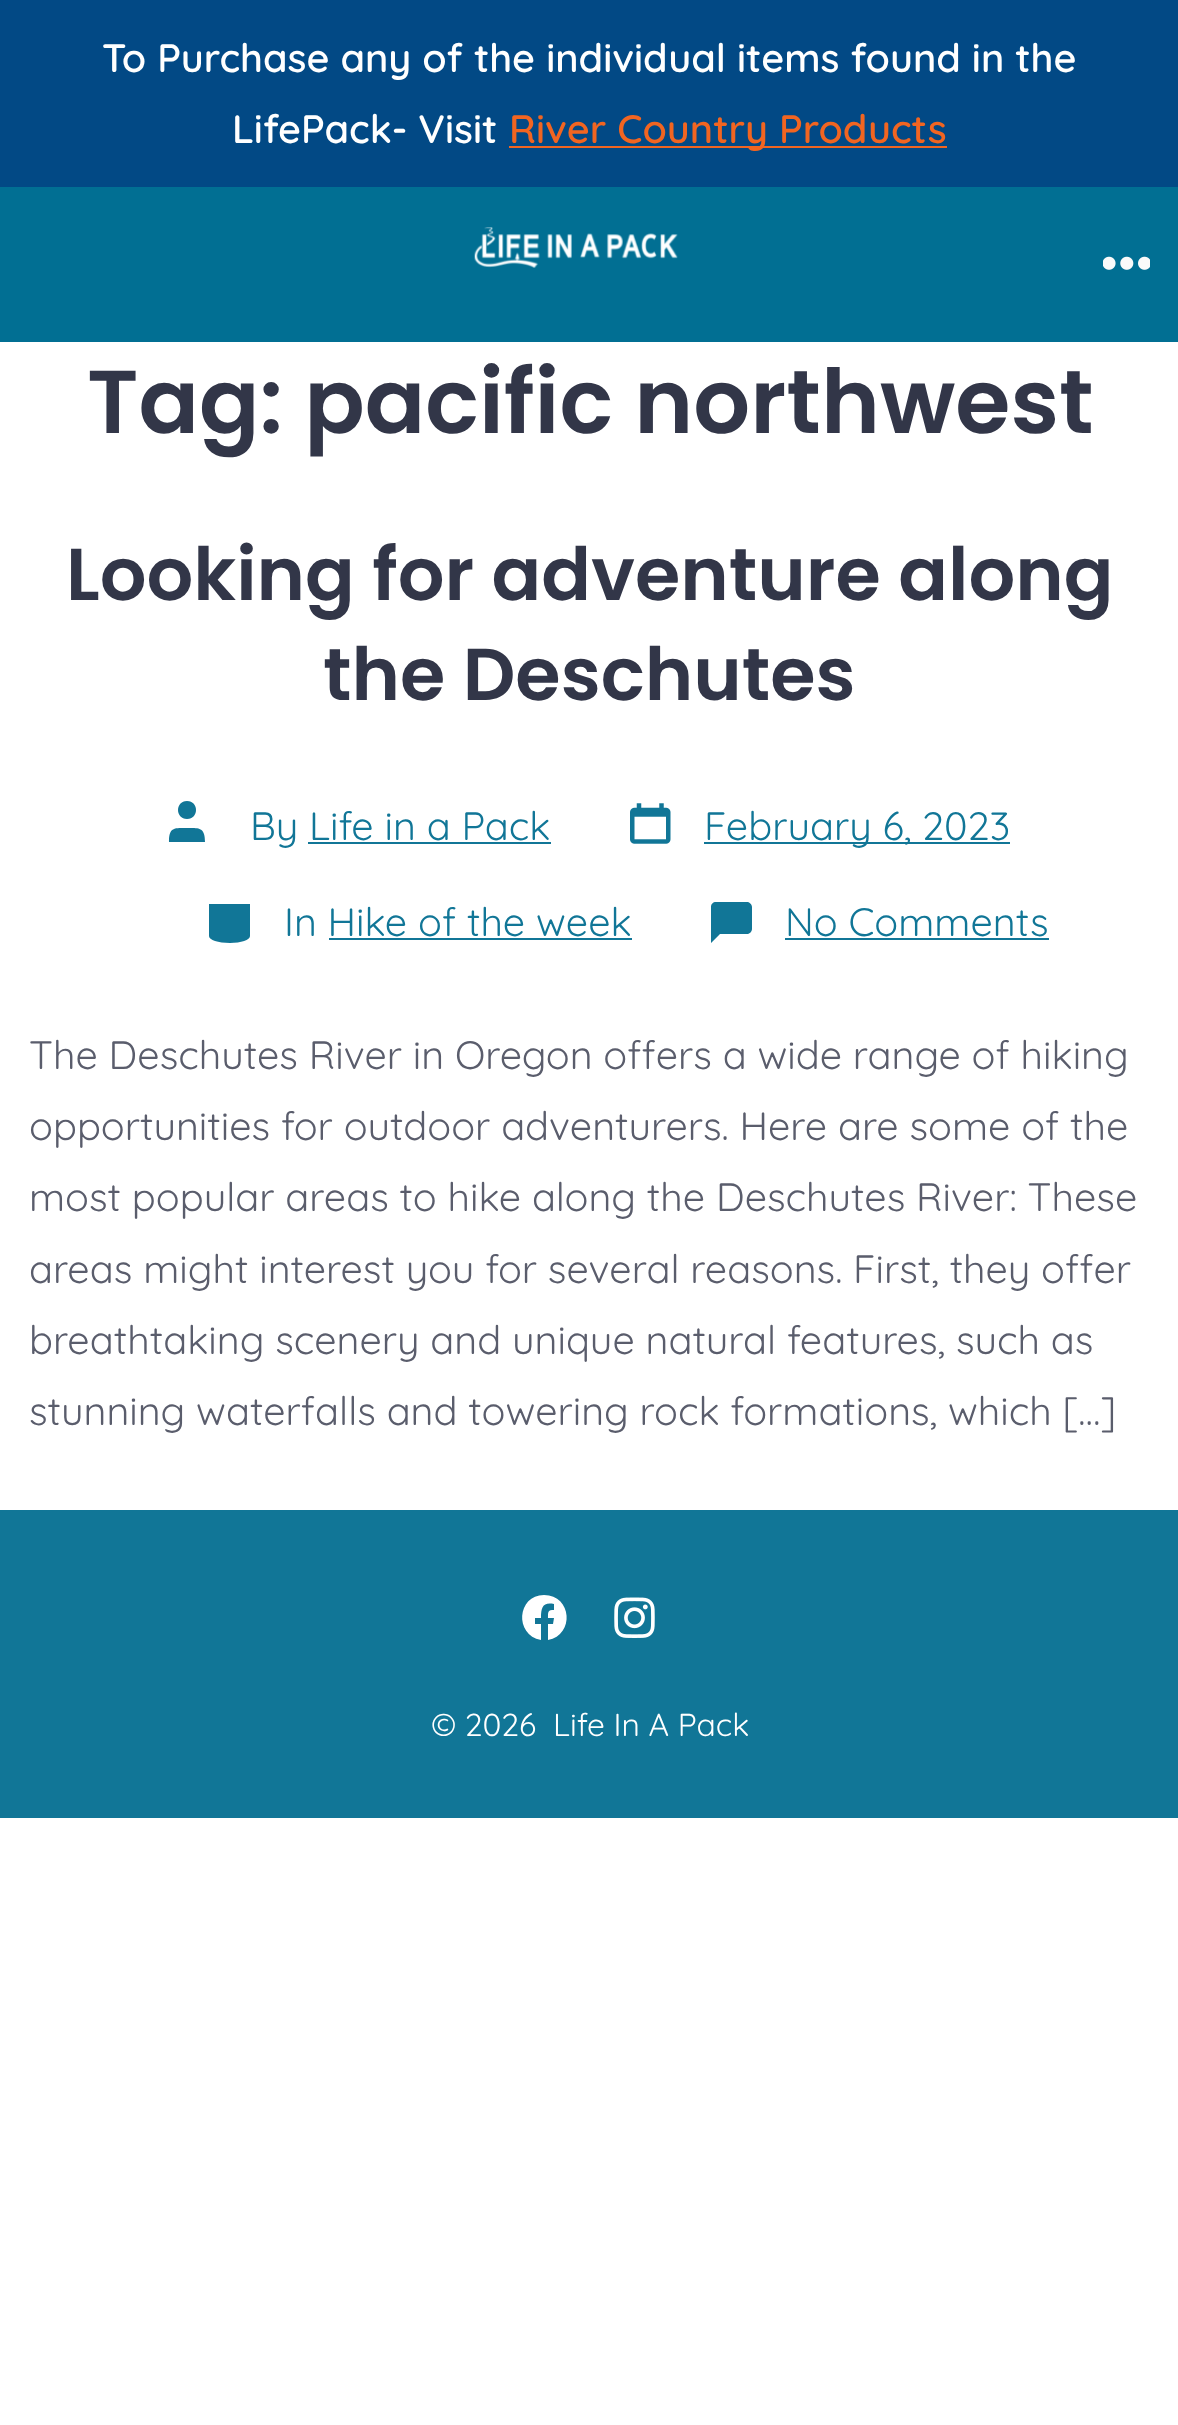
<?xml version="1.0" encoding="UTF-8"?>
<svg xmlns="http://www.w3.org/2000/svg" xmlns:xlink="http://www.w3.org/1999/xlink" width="1178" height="2425">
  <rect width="100%" height="100%" fill="#ffffff" />
  <rect width="1178" height="187" fill="#024985" />
  <rect x="509" y="146" width="438" height="2" fill="#f16521" />
  <rect y="187" width="1178" height="155" fill="#016f93" />
  <image x="474" y="227" width="204" height="41" xlink:href="image1.png" />
  <image x="1103" y="256" width="47" height="14" xlink:href="image2.png" />
  <path d="M 205 842 h -36 c 0 -15 5 -14 18 -14 c 12 0 18 -1 18 14 z m -18 -23 c -12 0 -12 -18 0 -18 c 12 0 12 18 0 18 z" fill="#117697" />
  <rect x="308" y="842" width="243" height="2" fill="#117697" />
  <image x="630" y="803" width="41" height="41" xlink:href="image3.png" />
  <rect x="704" y="842" width="306" height="2" fill="#117697" />
  <path d="M 209 904 v 32 c 0 4 9 7 21 7 c 11 0 20 -3 20 -7 v -32" fill="#117697" />
  <rect x="329" y="938" width="303" height="2" fill="#117697" />
  <path d="M 752 929 c 0 3 -3 5 -5 5 h -27 l -9 9 v -36 c 0 -3 2 -5 5 -5 h 31 c 2 0 5 2 5 5 z" fill="#117697" />
  <rect x="785" y="938" width="264" height="2" fill="#117697" />
  <rect y="1510" width="1178" height="308" fill="#117697" />
  <path d="M 544 1595 c -27 0 -30 40 -3 45 v -16 h -6 v -6 h 6 c 0 -11 2 -16 13 -14 v 6 c -6 0 -6 1 -6 8 h 6 l -1 6 h -5 v 16 c 27 -5 24 -45 -4 -45 z" fill="#ffffff" />
  <image x="614" y="1597" width="41" height="41" xlink:href="image4.png" />
  <text x="102" y="72" style="font-family: Quicksand; font-size: 39.6px; font-weight: 600; fill: #ffffff">To Purchase any of the individual items found in the</text>
  <text x="232" y="143" style="font-family: Quicksand; font-size: 39.6px; font-weight: 600; fill: #ffffff">LifePack- Visit</text>
  <text x="509" y="143" style="font-family: Quicksand; font-size: 39.6px; font-weight: 600; fill: #f16521">River Country Products</text>
  <text x="87" y="433" style="font-family: Poppins; font-size: 89.25px; font-weight: 600; fill: #323648">Tag: pacific northwest</text>
  <text x="66" y="600" style="font-family: Poppins; font-size: 73.4px; font-weight: 600; fill: #323648">Looking for adventure along</text>
  <text x="323" y="700" style="font-family: Poppins; font-size: 73.4px; font-weight: 600; fill: #323648">the Deschutes</text>
  <text x="250" y="840" style="font-family: Quicksand; font-size: 39.6px; fill: #117697">By Life in a Pack</text>
  <text x="704" y="840" style="font-family: Quicksand; font-size: 39.6px; fill: #117697">February 6, 2023</text>
  <text x="284" y="936" style="font-family: Quicksand; font-size: 39.6px; fill: #117697">In Hike of the week</text>
  <text x="785" y="936" style="font-family: Quicksand; font-size: 39.6px; fill: #117697">No Comments</text>
  <text x="29" y="1069" style="font-family: Quicksand; font-size: 39.6px; fill: #5a5d6c">The Deschutes River in Oregon offers a wide range of hiking</text>
  <text x="29" y="1140" style="font-family: Quicksand; font-size: 39.6px; fill: #5a5d6c">opportunities for outdoor adventurers. Here are some of the</text>
  <text x="29" y="1211" style="font-family: Quicksand; font-size: 39.6px; fill: #5a5d6c">most popular areas to hike along the Deschutes River: These</text>
  <text x="29" y="1283" style="font-family: Quicksand; font-size: 39.6px; fill: #5a5d6c">areas might interest you for several reasons. First, they offer</text>
  <text x="29" y="1354" style="font-family: Quicksand; font-size: 39.6px; fill: #5a5d6c">breathtaking scenery and unique natural features, such as</text>
  <text x="29" y="1425" style="font-family: Quicksand; font-size: 39.6px; fill: #5a5d6c">stunning waterfalls and towering rock formations, which […]</text>
  <text x="431" y="1736" style="font-family: Quicksand; font-size: 31.75px; fill: #ffffff">© 2026</text>
  <text x="553" y="1736" style="font-family: Quicksand; font-size: 31.75px; fill: #ffffff">Life In A Pack</text>
</svg>
